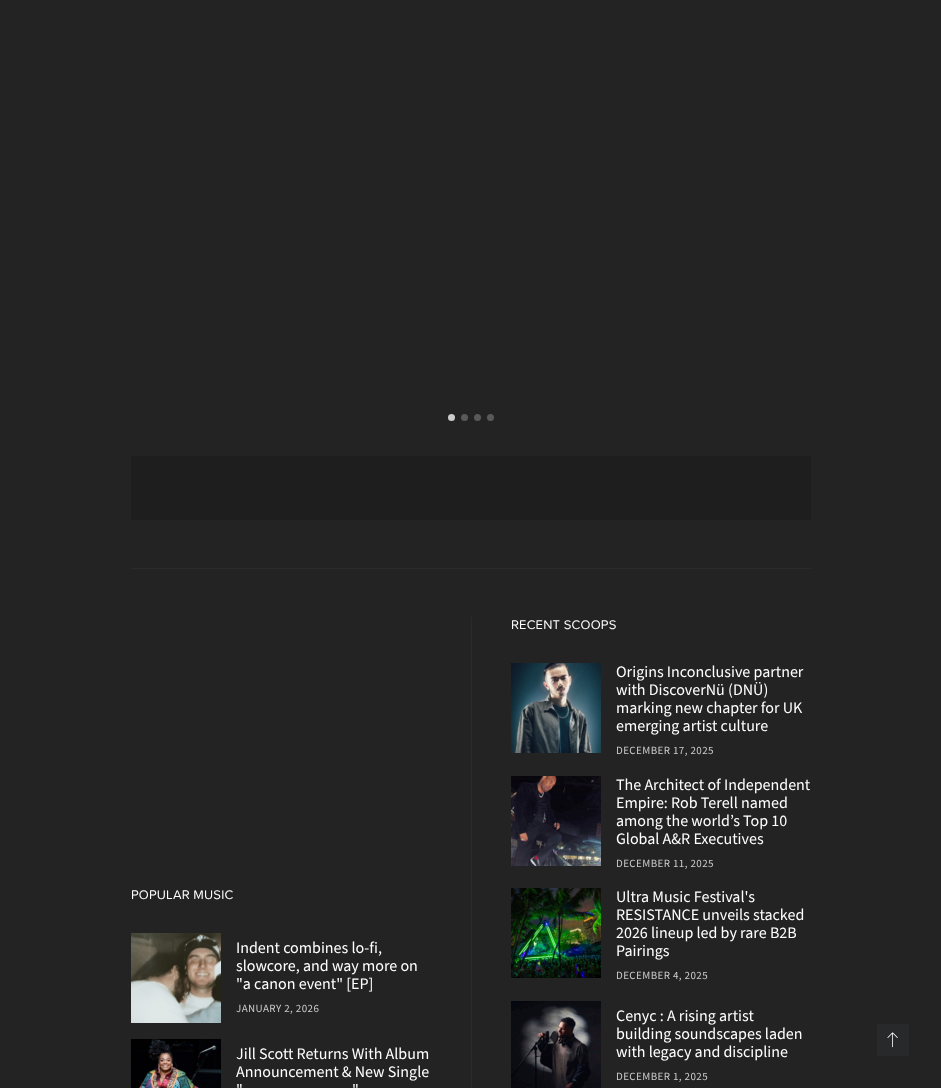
<?xml version="1.0" encoding="UTF-8"?>
<svg xmlns="http://www.w3.org/2000/svg" xmlns:xlink="http://www.w3.org/1999/xlink" width="941" height="1088">
  <rect width="100%" height="100%" fill="#232323" />
  <rect x="131" y="568" width="680" height="1" fill="#2b2b2b" />
  <circle cx="451.5" cy="417.5" r="3.5" fill="#cccccc" />
  <circle cx="464.5" cy="417.5" r="3.5" fill="#595959" />
  <circle cx="477.5" cy="417.5" r="3.5" fill="#595959" />
  <circle cx="490.5" cy="417.5" r="3.5" fill="#595959" />
  <rect x="131" y="456" width="680" height="64" fill="#1e1e1e" />
  <image x="131" y="933" width="90" height="90" xlink:href="image1.png" />
  <image x="131" y="1039" width="90" height="49" xlink:href="image2.png" />
  <rect x="471" y="617" width="1" height="471" fill="#2b2b2b" />
  <image x="511" y="663" width="90" height="90" xlink:href="image3.png" />
  <image x="511" y="776" width="90" height="90" xlink:href="image4.png" />
  <image x="511" y="888" width="90" height="90" xlink:href="image5.png" />
  <image x="511" y="1001" width="90" height="87" xlink:href="image6.png" />
  <rect x="877" y="1024" width="32" height="32" fill="#28292a" />
  <image x="887" y="1032" width="11" height="16" xlink:href="image7.png" />
  <text x="131" y="899" style="font-family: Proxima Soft; font-size: 13px; letter-spacing: 0.2px; fill: #ffffff">POPULAR MUSIC</text>
  <text x="236" y="953" style="font-family: Source Sans Pro; font-size: 16px; fill: #ffffff">Indent combines lo-fi,</text>
  <text x="236" y="971" style="font-family: Source Sans Pro; font-size: 16px; fill: #ffffff">slowcore, and way more on</text>
  <text x="236" y="989" style="font-family: Source Sans Pro; font-size: 16px; fill: #ffffff">"a canon event" [EP]</text>
  <text x="236" y="1012" style="font-family: Source Sans Pro; font-size: 11px; letter-spacing: 0.4px; fill: #cccccc">JANUARY 2, 2026</text>
  <text x="236" y="1059" style="font-family: Source Sans Pro; font-size: 16px; fill: #ffffff">Jill Scott Returns With Album</text>
  <text x="236" y="1077" style="font-family: Source Sans Pro; font-size: 16px; fill: #ffffff">Announcement &amp; New Single</text>
  <text x="236" y="1095" style="font-family: Source Sans Pro; font-size: 16px; fill: #ffffff">"</text>
  <text x="352" y="1095" style="font-family: Source Sans Pro; font-size: 16px; fill: #ffffff">"</text>
  <text x="511" y="629" style="font-family: Proxima Soft; font-size: 13px; letter-spacing: 0.2px; fill: #ffffff">RECENT SCOOPS</text>
  <text x="616" y="677" style="font-family: Source Sans Pro; font-size: 16px; fill: #ffffff">Origins Inconclusive partner</text>
  <text x="616" y="695" style="font-family: Source Sans Pro; font-size: 16px; fill: #ffffff">with DiscoverNü (DNÜ)</text>
  <text x="616" y="713" style="font-family: Source Sans Pro; font-size: 16px; fill: #ffffff">marking new chapter for UK</text>
  <text x="616" y="731" style="font-family: Source Sans Pro; font-size: 16px; fill: #ffffff">emerging artist culture</text>
  <text x="616" y="754" style="font-family: Source Sans Pro; font-size: 11px; letter-spacing: 0.4px; fill: #cccccc">DECEMBER 17, 2025</text>
  <text x="616" y="790" style="font-family: Source Sans Pro; font-size: 16px; fill: #ffffff">The Architect of Independent</text>
  <text x="616" y="808" style="font-family: Source Sans Pro; font-size: 16px; fill: #ffffff">Empire: Rob Terell named</text>
  <text x="616" y="826" style="font-family: Source Sans Pro; font-size: 16px; fill: #ffffff">among the world’s Top 10</text>
  <text x="616" y="844" style="font-family: Source Sans Pro; font-size: 16px; fill: #ffffff">Global A&amp;R Executives</text>
  <text x="616" y="867" style="font-family: Source Sans Pro; font-size: 11px; letter-spacing: 0.4px; fill: #cccccc">DECEMBER 11, 2025</text>
  <text x="616" y="902" style="font-family: Source Sans Pro; font-size: 16px; fill: #ffffff">Ultra Music Festival's</text>
  <text x="616" y="920" style="font-family: Source Sans Pro; font-size: 16px; fill: #ffffff">RESISTANCE unveils stacked</text>
  <text x="616" y="938" style="font-family: Source Sans Pro; font-size: 16px; fill: #ffffff">2026 lineup led by rare B2B</text>
  <text x="616" y="956" style="font-family: Source Sans Pro; font-size: 16px; fill: #ffffff">Pairings</text>
  <text x="616" y="979" style="font-family: Source Sans Pro; font-size: 11px; letter-spacing: 0.4px; fill: #cccccc">DECEMBER 4, 2025</text>
  <text x="616" y="1021" style="font-family: Source Sans Pro; font-size: 16px; fill: #ffffff">Cenyc : A rising artist</text>
  <text x="616" y="1039" style="font-family: Source Sans Pro; font-size: 16px; fill: #ffffff">building soundscapes laden</text>
  <text x="616" y="1057" style="font-family: Source Sans Pro; font-size: 16px; fill: #ffffff">with legacy and discipline</text>
  <text x="616" y="1080" style="font-family: Source Sans Pro; font-size: 11px; letter-spacing: 0.4px; fill: #cccccc">DECEMBER 1, 2025</text>
</svg>
